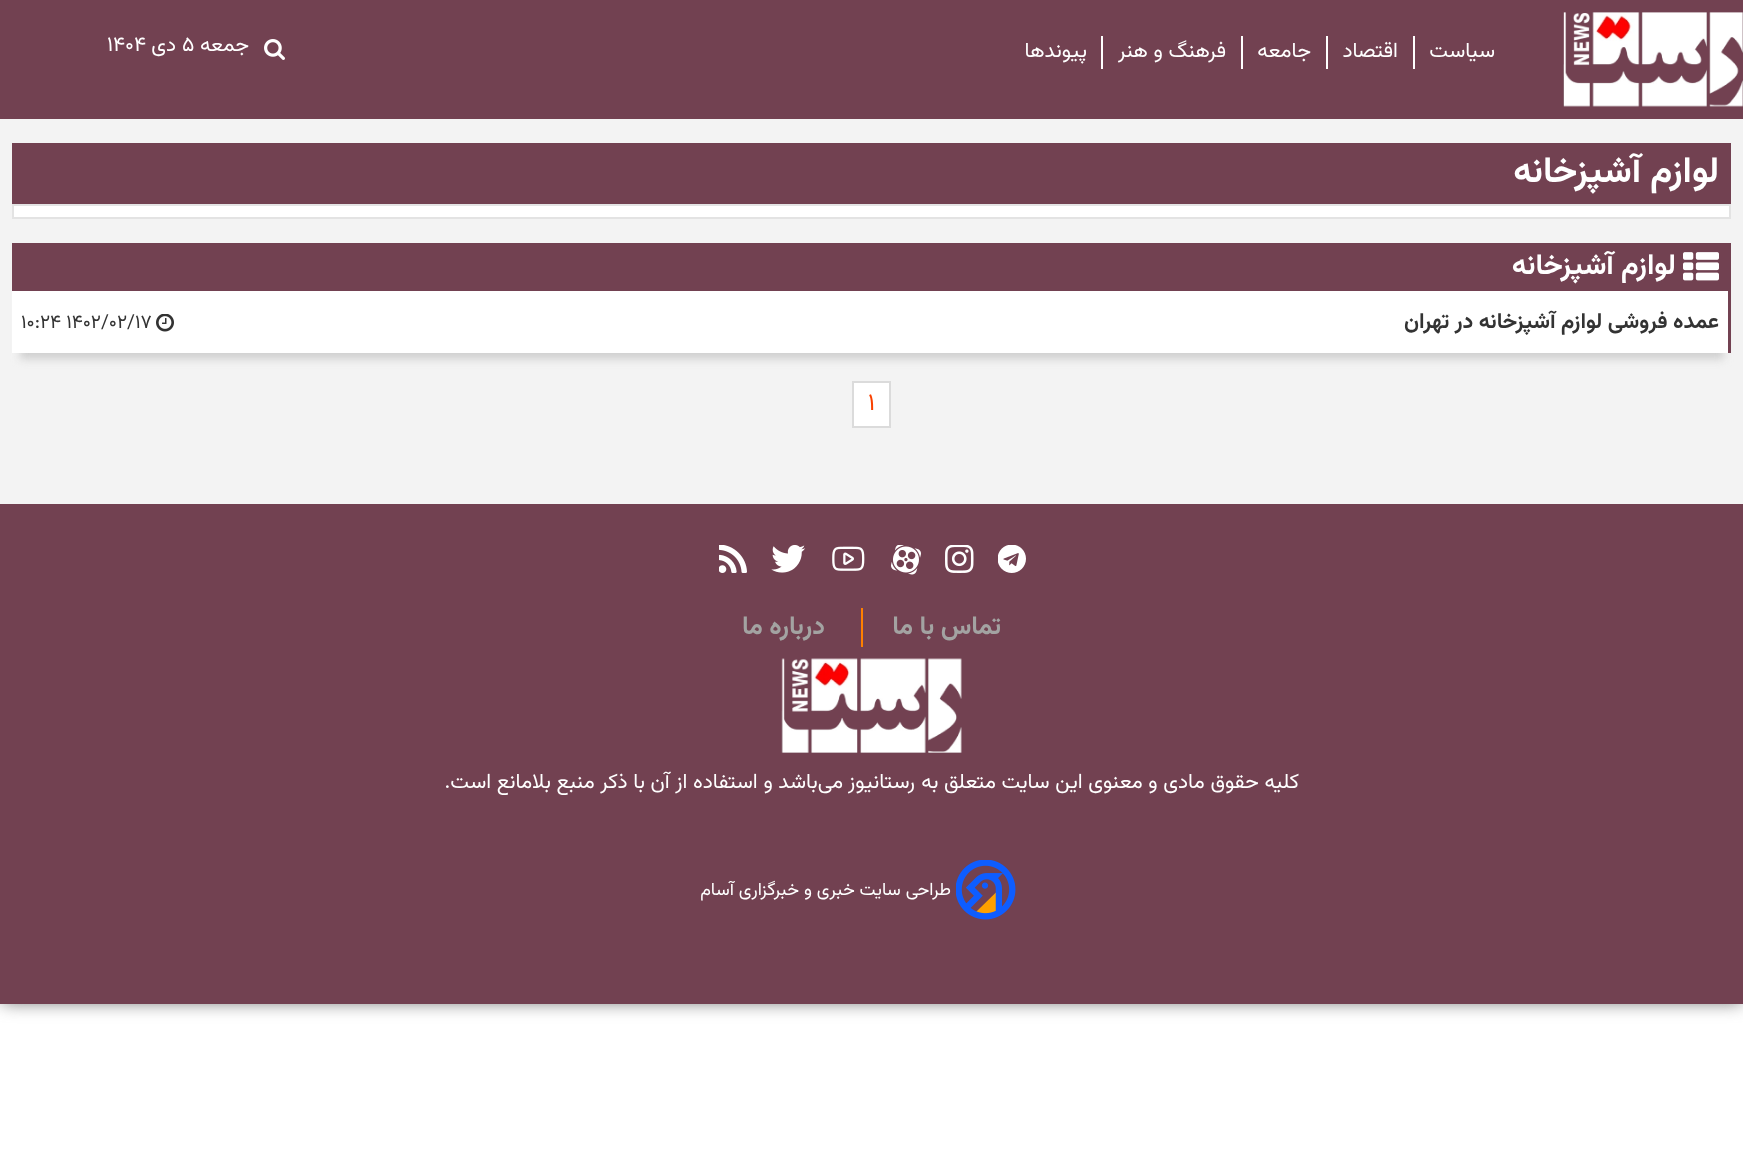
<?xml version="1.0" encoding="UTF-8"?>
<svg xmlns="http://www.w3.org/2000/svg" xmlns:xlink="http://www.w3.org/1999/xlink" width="1743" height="1173">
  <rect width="100%" height="100%" fill="#ffffff" />
  <rect x="2" y="2" width="1740" height="1000" fill="#6b6b6b" filter="blur(9px)" />
  <rect width="1743" height="119" fill="#724151" />
  <image x="1563" y="12" width="180" height="95" xlink:href="image1.png" />
  <rect x="1413" y="36" width="2" height="33" fill="#ffffff" />
  <rect x="1326" y="36" width="2" height="33" fill="#ffffff" />
  <rect x="1241" y="36" width="2" height="33" fill="#ffffff" />
  <rect x="1101" y="36" width="2" height="33" fill="#ffffff" />
  <image x="264" y="39" width="21" height="21" xlink:href="image2.png" />
  <rect y="119" width="1743" height="385" fill="#f3f3f3" />
  <rect x="12" y="143" width="1719" height="61" fill="#724151" />
  <rect x="13" y="205" width="1717" height="13" fill="#ffffff" stroke="#e3e3e3" stroke-width="2" />
  <rect x="20" y="264" width="1704" height="95" fill="#cfcfcf" filter="blur(4px)" />
  <rect x="12" y="291" width="1716" height="62" fill="#ffffff" />
  <rect x="12" y="243" width="1719" height="48" fill="#724151" />
  <image x="1683" y="252" width="36" height="29" xlink:href="image3.png" />
  <rect x="1728" y="291" width="3" height="62" fill="#724151" />
  <image x="156" y="314" width="18" height="18" xlink:href="image4.png" />
  <rect x="853" y="382" width="37" height="45" fill="#ffffff" stroke="#dbdbdb" stroke-width="2" />
  <rect y="504" width="1743" height="500" fill="#724151" />
  <image x="998" y="545" width="28" height="28" xlink:href="image5.png" />
  <image x="945" y="545" width="29" height="28" xlink:href="image6.png" />
  <image x="891" y="545" width="30" height="30" xlink:href="image7.png" />
  <image x="832" y="546" width="33" height="25" xlink:href="image8.png" />
  <image x="771" y="545" width="35" height="28" xlink:href="image9.png" />
  <image x="719" y="545" width="28" height="28" xlink:href="image10.png" />
  <rect x="861" y="608" width="2" height="39" fill="#ff8000" />
  <image x="781" y="658" width="181" height="95" xlink:href="image11.png" />
  <image x="956" y="860" width="60" height="60" xlink:href="image12.png" />
  <text x="1495" y="57" style="font-family: Vazirmatn; font-size: 21px; direction: rtl; fill: #ffffff">سیاست</text>
  <text x="1398" y="57" style="font-family: Vazirmatn; font-size: 21px; direction: rtl; fill: #ffffff">اقتصاد</text>
  <text x="1311" y="57" style="font-family: Vazirmatn; font-size: 21px; direction: rtl; fill: #ffffff">جامعه</text>
  <text x="1226" y="57" style="font-family: Vazirmatn; font-size: 21px; direction: rtl; fill: #ffffff">فرهنگ و هنر</text>
  <text x="1087" y="57" style="font-family: Vazirmatn; font-size: 21px; direction: rtl; fill: #ffffff">پیوند‌ها</text>
  <text x="249" y="51" style="font-family: Vazirmatn; font-size: 21px; direction: rtl; fill: #ffffff">جمعه</text>
  <text x="182" y="51" style="font-family: Vazirmatn; font-size: 21px; fill: #ffffff">۵</text>
  <text x="176" y="51" style="font-family: Vazirmatn; font-size: 21px; direction: rtl; fill: #ffffff">دی</text>
  <text x="107" y="51" style="font-family: Vazirmatn; font-size: 21px; fill: #ffffff">۱۴۰۴</text>
  <text x="1719" y="182" style="font-family: Vazirmatn; font-size: 36px; font-weight: bold; direction: rtl; fill: #ffffff">لوازم آشپزخانه</text>
  <text x="1676" y="274" style="font-family: Vazirmatn; font-size: 28.75px; font-weight: bold; direction: rtl; fill: #ffffff">لوازم آشپزخانه</text>
  <text x="1719" y="328" style="font-family: Vazirmatn; font-size: 21.6px; font-weight: bold; direction: rtl; fill: #333333">عمده فروشی لوازم آشپزخانه در تهران</text>
  <text x="21" y="328" style="font-family: Vazirmatn; font-size: 19.25px; fill: #333333">۱۰:۲۴ ۱۴۰۲/۰۲/۱۷</text>
  <text x="868" y="410" style="font-family: Vazirmatn; font-size: 24px; fill: #f94100">۱</text>
  <text x="1001" y="634" style="font-family: Vazirmatn; font-size: 25.5px; font-weight: bold; direction: rtl; fill: #a3a3a2">تماس با ما</text>
  <text x="825" y="634" style="font-family: Vazirmatn; font-size: 25.5px; font-weight: bold; direction: rtl; fill: #a3a3a2">درباره ما</text>
  <text x="1299" y="788" style="font-family: Vazirmatn; font-size: 21px; direction: rtl; fill: #ffffff">کلیه حقوق مادی و معنوی این سایت متعلق به</text>
  <text x="915" y="788" style="font-family: Vazirmatn; font-size: 21px; direction: rtl; fill: #ffffff">رستانیوز</text>
  <text x="843" y="788" style="font-family: Vazirmatn; font-size: 21px; direction: rtl; fill: #ffffff">می‌باشد و استفاده از آن با ذکر منبع بلامانع است.</text>
  <text x="951" y="895" style="font-family: Vazirmatn; font-size: 18px; direction: rtl; fill: #ffffff">طراحی سایت خبری و خبرگزاری آسام</text>
</svg>
